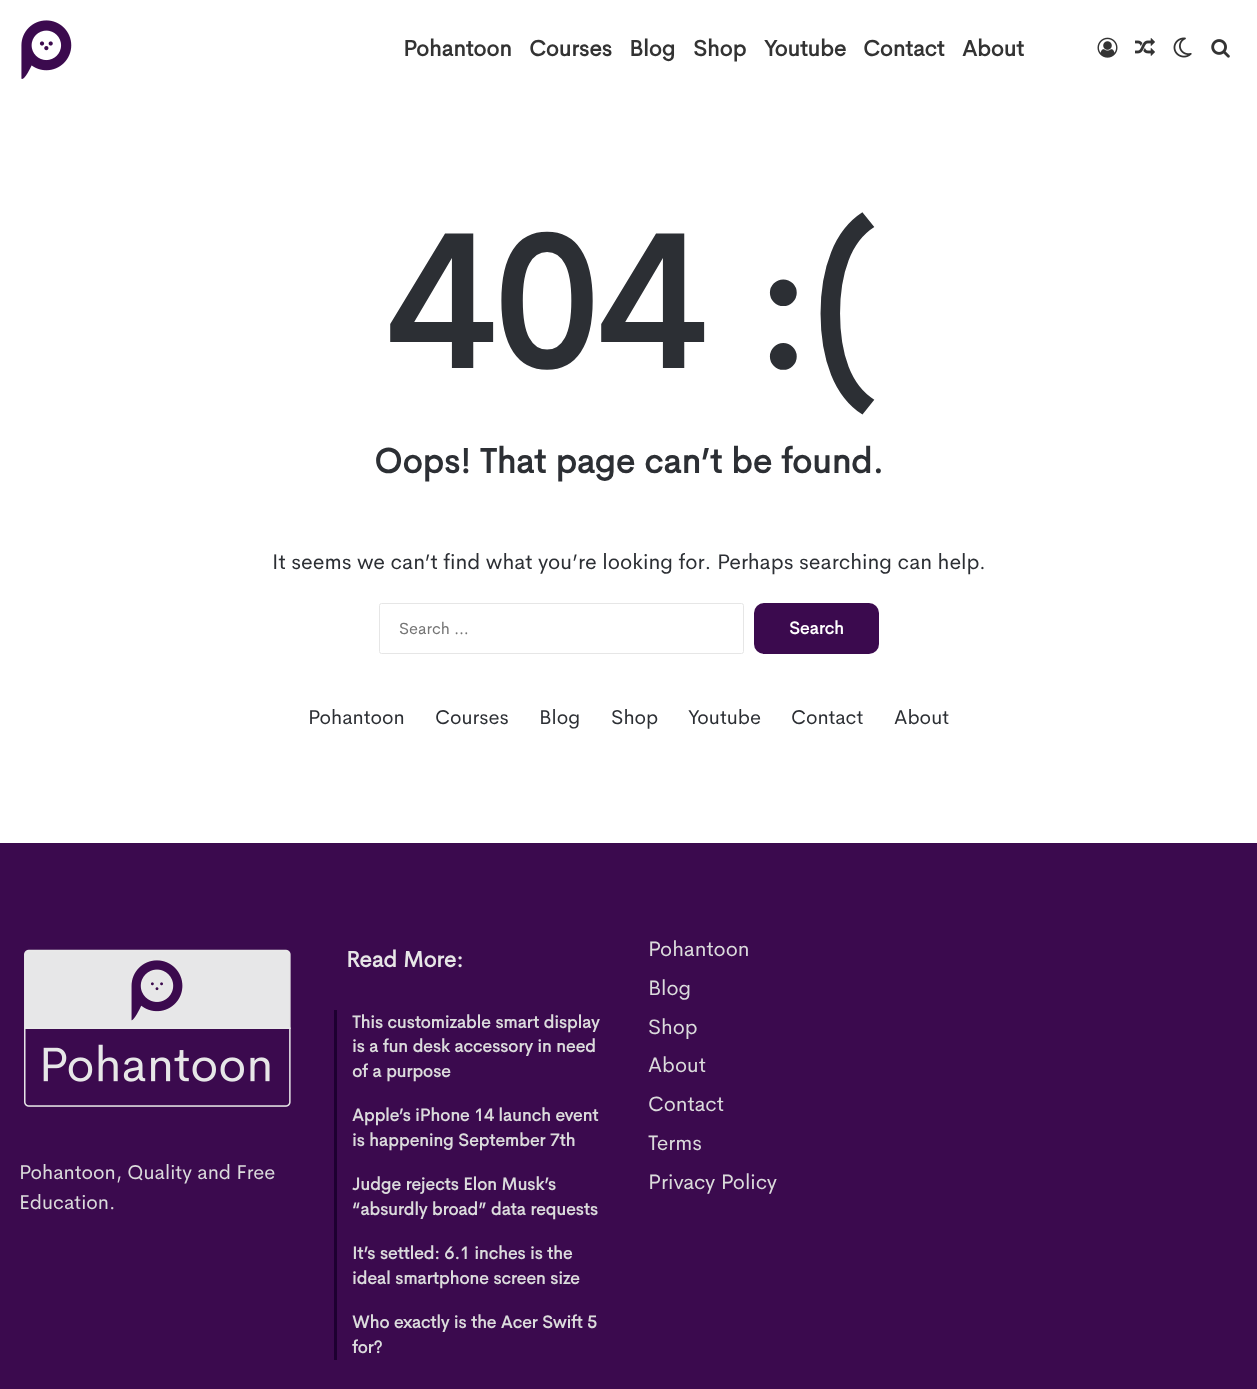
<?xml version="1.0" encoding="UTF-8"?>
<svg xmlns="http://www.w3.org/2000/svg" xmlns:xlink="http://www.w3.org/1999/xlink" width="1257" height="1389">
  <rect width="100%" height="100%" fill="#ffffff" />
  <image x="21" y="20" width="51" height="59" xlink:href="image1.png" />
  <image x="1097" y="37" width="21" height="21" xlink:href="image2.png" />
  <image x="1135" y="38" width="20" height="18" xlink:href="image3.png" />
  <image x="1173" y="37" width="19" height="21" xlink:href="image4.png" />
  <image x="1211" y="39" width="19" height="19" xlink:href="image5.png" />
  <rect x="379.5" y="603.5" width="364" height="50" rx="2" fill="none" stroke="#e6e6e6" />
  <rect x="754" y="603" width="125" height="51" rx="10" fill="#3b0a4e" />
  <rect y="843" width="1257" height="546" fill="#3b0a4e" />
  <image x="24" y="949" width="267" height="158" xlink:href="image6.png" />
  <rect x="334" y="1010" width="3" height="350" fill="#1d0030" />
  <text x="403" y="56" style="font-family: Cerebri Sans; font-size: 22.5px; font-weight: bold; fill: #333333">Pohantoon</text>
  <text x="529" y="56" style="font-family: Cerebri Sans; font-size: 22.5px; font-weight: bold; fill: #333333">Courses</text>
  <text x="629" y="56" style="font-family: Cerebri Sans; font-size: 22.5px; font-weight: bold; fill: #333333">Blog</text>
  <text x="693" y="56" style="font-family: Cerebri Sans; font-size: 22.5px; font-weight: bold; fill: #333333">Shop</text>
  <text x="764" y="56" style="font-family: Cerebri Sans; font-size: 22.5px; font-weight: bold; fill: #333333">Youtube</text>
  <text x="863" y="56" style="font-family: Cerebri Sans; font-size: 22.5px; font-weight: bold; fill: #333333">Contact</text>
  <text x="962" y="56" style="font-family: Cerebri Sans; font-size: 22.5px; font-weight: bold; fill: #333333">About</text>
  <text x="386" y="368" style="font-family: Cerebri Sans; font-size: 187.5px; font-weight: bold; fill: #2c2f34">404 :(</text>
  <text x="374" y="473" style="font-family: Cerebri Sans; font-size: 35px; font-weight: bold; fill: #2c2f34">Oops! That page can’t be found.</text>
  <text x="272" y="569" style="font-family: Cerebri Sans; font-size: 21.25px; fill: #2c2f34">It seems we can’t find what you’re looking for. Perhaps searching can help.</text>
  <text x="399" y="634" style="font-family: Cerebri Sans; font-size: 16.25px; fill: #757575">Search …</text>
  <text x="789" y="634" style="font-family: Cerebri Sans; font-size: 17.5px; font-weight: bold; fill: #ffffff">Search</text>
  <text x="308" y="724" style="font-family: Cerebri Sans; font-size: 20px; fill: #2c2f34">Pohantoon</text>
  <text x="435" y="724" style="font-family: Cerebri Sans; font-size: 20px; fill: #2c2f34">Courses</text>
  <text x="539" y="724" style="font-family: Cerebri Sans; font-size: 20px; fill: #2c2f34">Blog</text>
  <text x="611" y="724" style="font-family: Cerebri Sans; font-size: 20px; fill: #2c2f34">Shop</text>
  <text x="688" y="724" style="font-family: Cerebri Sans; font-size: 20px; fill: #2c2f34">Youtube</text>
  <text x="791" y="724" style="font-family: Cerebri Sans; font-size: 20px; fill: #2c2f34">Contact</text>
  <text x="894" y="724" style="font-family: Cerebri Sans; font-size: 20px; fill: #2c2f34">About</text>
  <text x="19" y="1179" style="font-family: Cerebri Sans; font-size: 20px; fill: #dbdbdc">Pohantoon, Quality and Free</text>
  <text x="19" y="1209" style="font-family: Cerebri Sans; font-size: 20px; fill: #dbdbdc">Education.</text>
  <text x="346" y="967" style="font-family: Cerebri Sans; font-size: 22.5px; font-weight: bold; fill: #e7e6e7">Read More:</text>
  <text x="352" y="1028" style="font-family: Cerebri Sans; font-size: 17.5px; font-weight: bold; fill: #dbdbdc">This customizable smart display</text>
  <text x="352" y="1052" style="font-family: Cerebri Sans; font-size: 17.5px; font-weight: bold; fill: #dbdbdc">is a fun desk accessory in need</text>
  <text x="352" y="1077" style="font-family: Cerebri Sans; font-size: 17.5px; font-weight: bold; fill: #dbdbdc">of a purpose</text>
  <text x="352" y="1121" style="font-family: Cerebri Sans; font-size: 17.5px; font-weight: bold; fill: #dbdbdc">Apple’s iPhone 14 launch event</text>
  <text x="352" y="1146" style="font-family: Cerebri Sans; font-size: 17.5px; font-weight: bold; fill: #dbdbdc">is happening September 7th</text>
  <text x="352" y="1190" style="font-family: Cerebri Sans; font-size: 17.5px; font-weight: bold; fill: #dbdbdc">Judge rejects Elon Musk’s</text>
  <text x="352" y="1215" style="font-family: Cerebri Sans; font-size: 17.5px; font-weight: bold; fill: #dbdbdc">“absurdly broad” data requests</text>
  <text x="352" y="1259" style="font-family: Cerebri Sans; font-size: 17.5px; font-weight: bold; fill: #dbdbdc">It’s settled: 6.1 inches is the</text>
  <text x="352" y="1284" style="font-family: Cerebri Sans; font-size: 17.5px; font-weight: bold; fill: #dbdbdc">ideal smartphone screen size</text>
  <text x="352" y="1328" style="font-family: Cerebri Sans; font-size: 17.5px; font-weight: bold; fill: #dbdbdc">Who exactly is the Acer Swift 5</text>
  <text x="352" y="1353" style="font-family: Cerebri Sans; font-size: 17.5px; font-weight: bold; fill: #dbdbdc">for?</text>
  <text x="648" y="956" style="font-family: Cerebri Sans; font-size: 21px; fill: #dbdbdc">Pohantoon</text>
  <text x="648" y="995" style="font-family: Cerebri Sans; font-size: 21px; fill: #dbdbdc">Blog</text>
  <text x="648" y="1034" style="font-family: Cerebri Sans; font-size: 21px; fill: #dbdbdc">Shop</text>
  <text x="648" y="1072" style="font-family: Cerebri Sans; font-size: 21px; fill: #dbdbdc">About</text>
  <text x="648" y="1111" style="font-family: Cerebri Sans; font-size: 21px; fill: #dbdbdc">Contact</text>
  <text x="648" y="1150" style="font-family: Cerebri Sans; font-size: 21px; fill: #dbdbdc">Terms</text>
  <text x="648" y="1189" style="font-family: Cerebri Sans; font-size: 21px; fill: #dbdbdc">Privacy Policy</text>
</svg>
